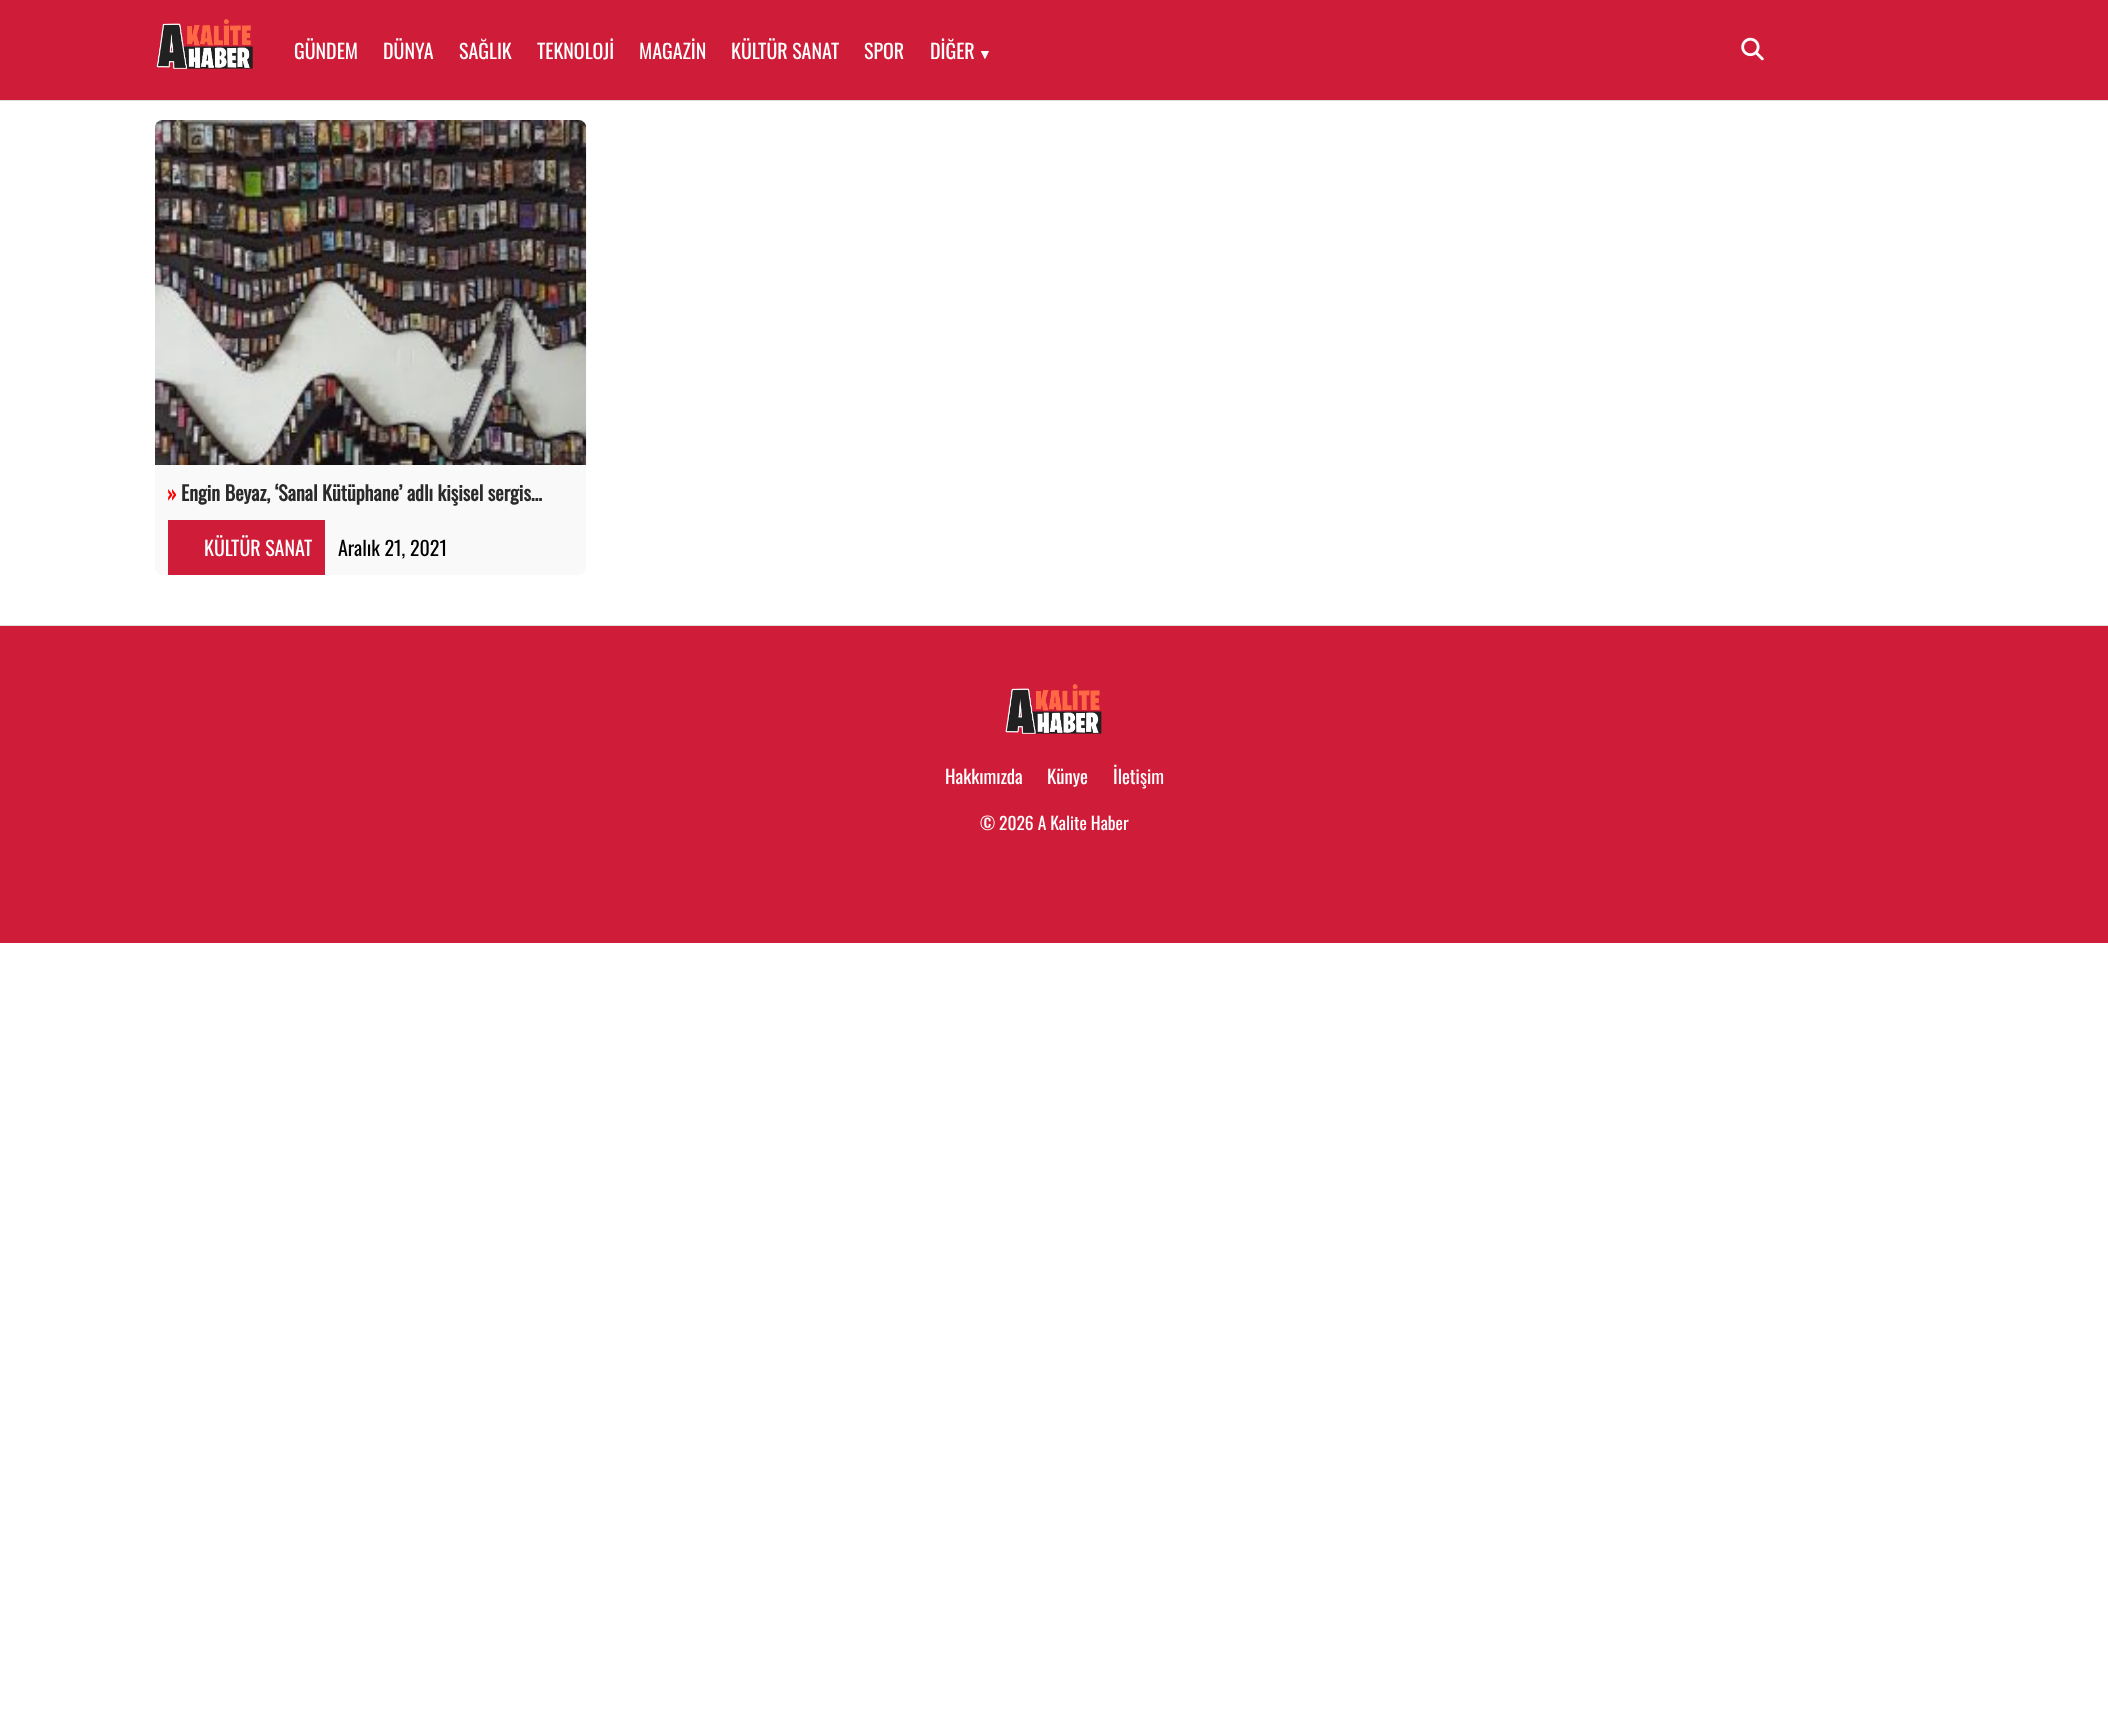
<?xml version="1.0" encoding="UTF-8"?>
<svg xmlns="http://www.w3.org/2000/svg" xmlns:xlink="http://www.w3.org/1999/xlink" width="2108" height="1724">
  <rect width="100%" height="100%" fill="#ffffff" />
  <rect width="2108" height="100" fill="#cf1d39" />
  <rect y="100" width="2108" height="1" fill="#dddddd" />
  <image x="156" y="19" width="97" height="50" xlink:href="image1.png" />
  <image x="1741" y="37" width="23" height="24" xlink:href="image2.png" />
  <rect x="155" y="120" width="431" height="455" rx="8" fill="#f9f9f9" />
  <image x="155" y="120" width="432" height="345" xlink:href="image3.png" />
  <rect x="168" y="520" width="157" height="55" fill="#cf1d39" />
  <rect y="626" width="2108" height="317" fill="#cf1d39" />
  <rect y="625" width="2108" height="1" fill="#dddddd" />
  <image x="1005" y="684" width="97" height="50" xlink:href="image4.png" />
  <text x="294" y="59" style="font-family: Oswald; font-size: 20px; fill: #ffffff">GÜNDEM</text>
  <text x="383" y="59" style="font-family: Oswald; font-size: 20px; fill: #ffffff">DÜNYA</text>
  <text x="459" y="59" style="font-family: Oswald; font-size: 20px; fill: #ffffff">SAĞLIK</text>
  <text x="537" y="59" style="font-family: Oswald; font-size: 20px; fill: #ffffff">TEKNOLOJİ</text>
  <text x="639" y="59" style="font-family: Oswald; font-size: 20px; fill: #ffffff">MAGAZİN</text>
  <text x="731" y="59" style="font-family: Oswald; font-size: 20px; fill: #ffffff">KÜLTÜR SANAT</text>
  <text x="864" y="59" style="font-family: Oswald; font-size: 20px; fill: #ffffff">SPOR</text>
  <text x="930" y="59" style="font-family: Oswald; font-size: 20px; fill: #ffffff">DİĞER</text>
  <text x="978" y="59" style="font-family: Liberation Sans; font-size: 14px; fill: #ffffff">▼</text>
  <text x="167" y="501" style="font-family: Oswald; font-size: 20px; font-weight: bold; fill: #ff0000">»</text>
  <text x="181" y="501" style="font-family: Oswald; font-size: 20px; font-weight: bold; fill: #2a2a2a">Engin Beyaz, ‘Sanal Kütüphane’ adlı kişisel sergis…</text>
  <text x="204" y="556" style="font-family: Oswald; font-size: 20px; fill: #ffffff">KÜLTÜR SANAT</text>
  <text x="338" y="556" style="font-family: Oswald; font-size: 20px; fill: #000000">Aralık 21, 2021</text>
  <text x="945" y="784" style="font-family: Oswald; font-size: 18.75px; fill: #ffffff">Hakkımızda</text>
  <text x="1047" y="784" style="font-family: Oswald; font-size: 18.75px; fill: #ffffff">Künye</text>
  <text x="1113" y="784" style="font-family: Oswald; font-size: 18.75px; fill: #ffffff">İletişim</text>
  <text x="980" y="830" style="font-family: Oswald; font-size: 17.5px; fill: #ffffff">© 2026 A Kalite Haber</text>
</svg>
